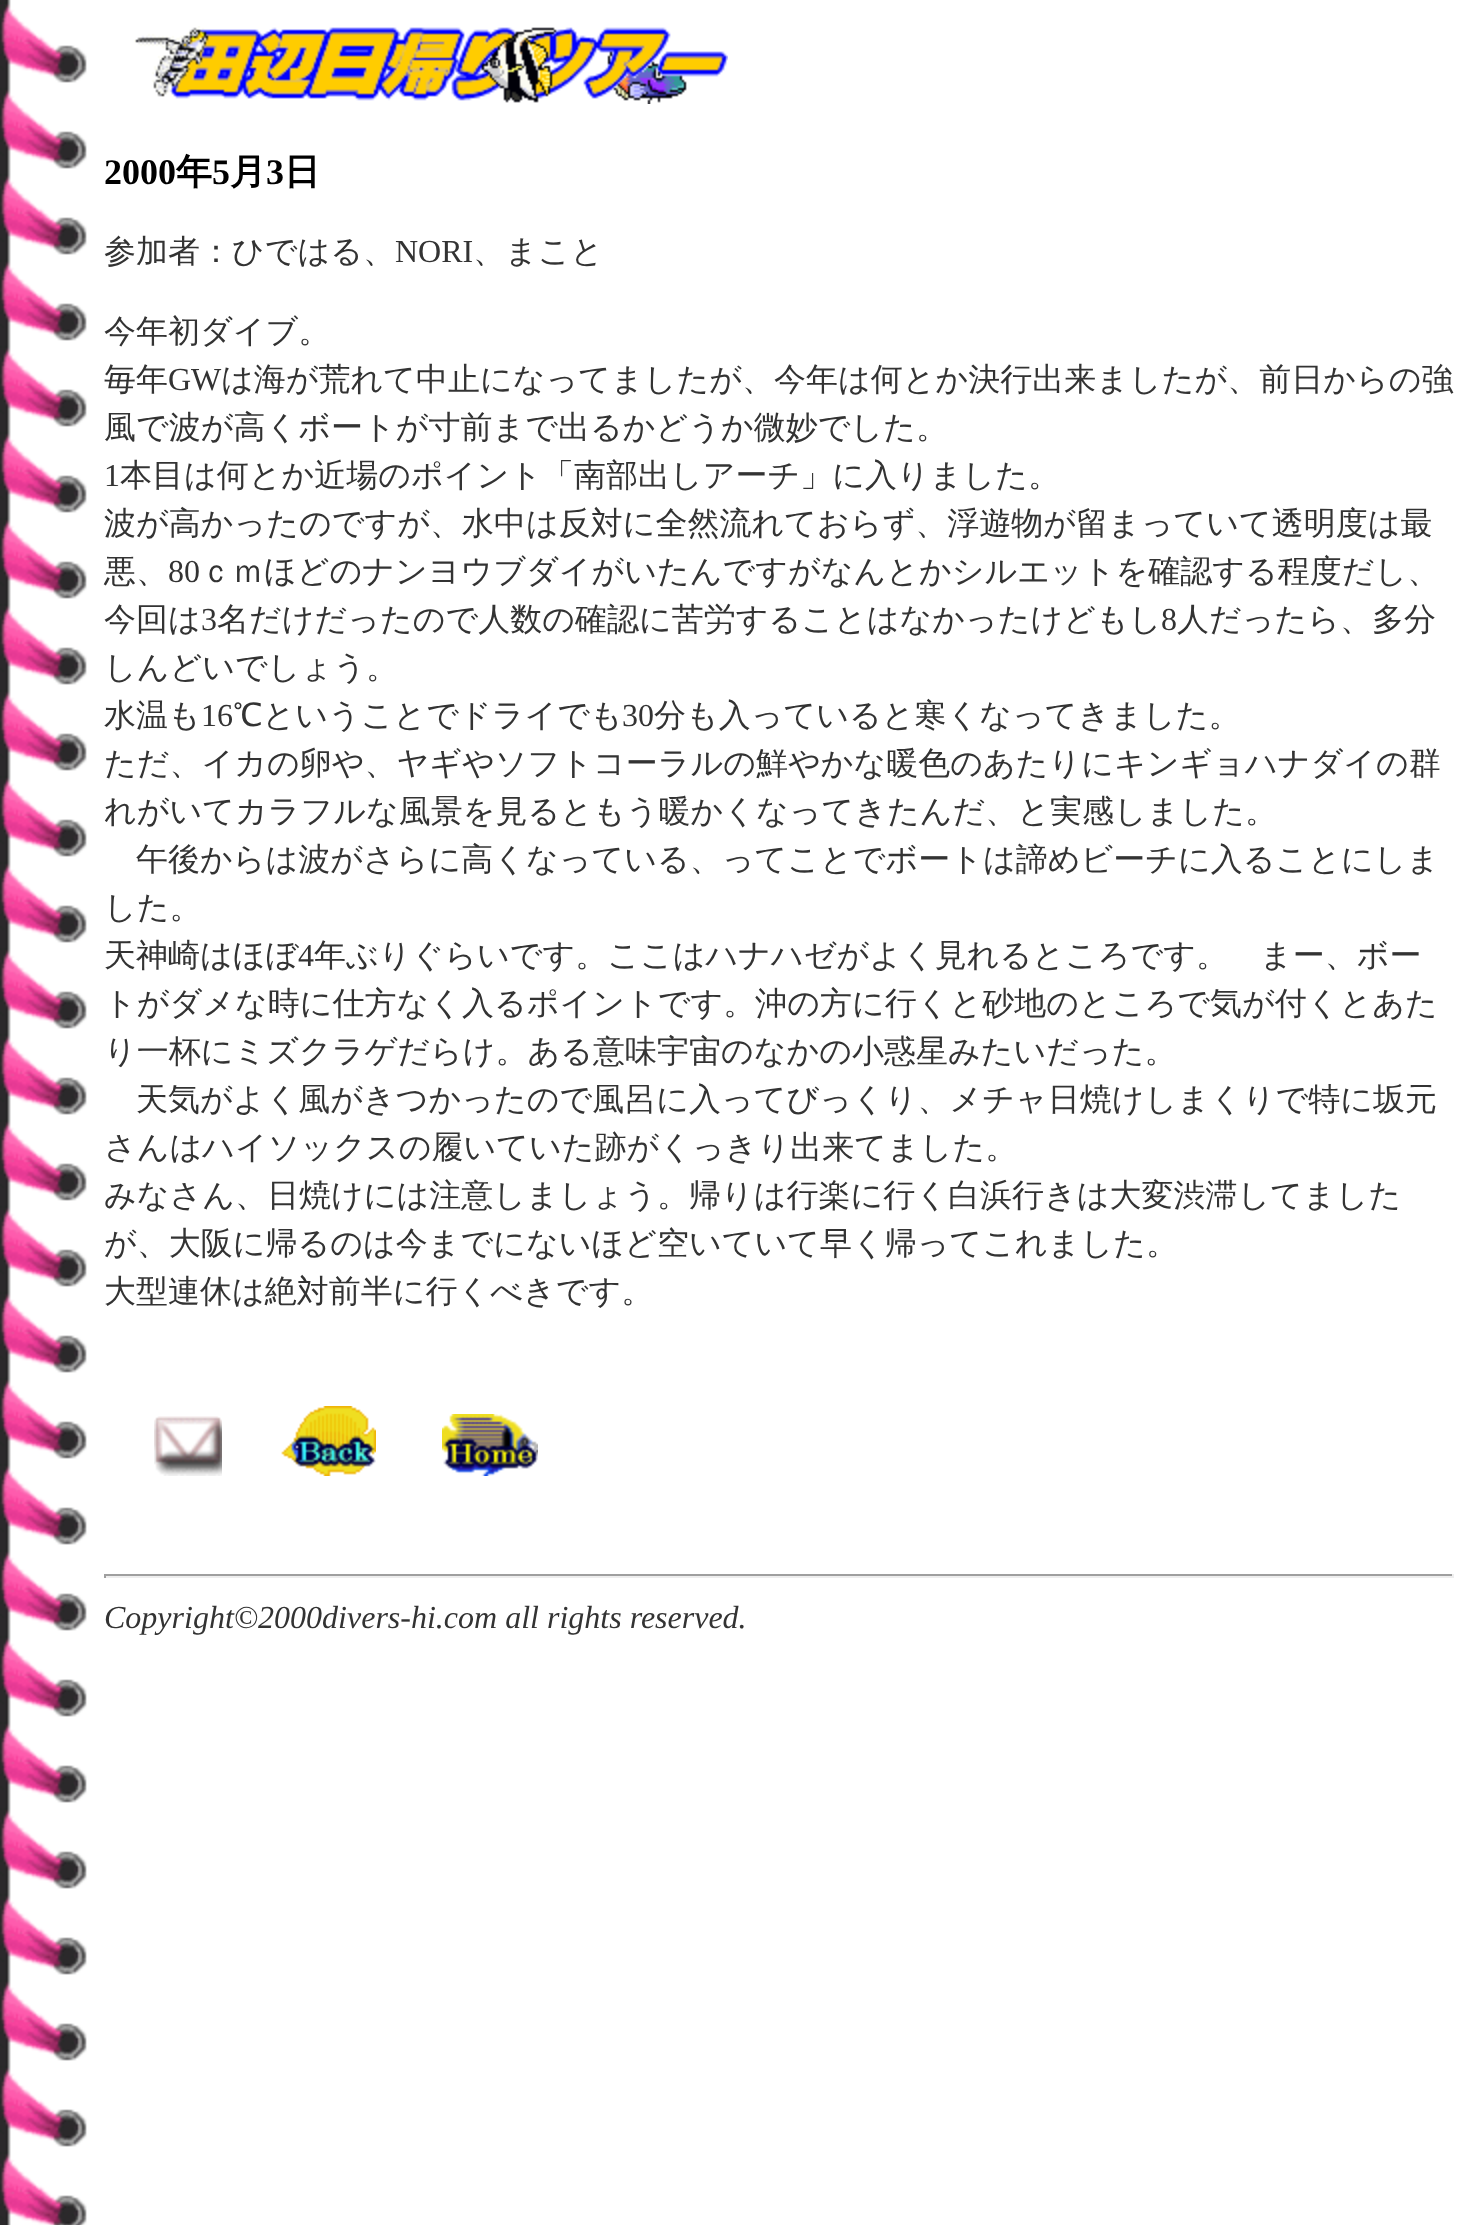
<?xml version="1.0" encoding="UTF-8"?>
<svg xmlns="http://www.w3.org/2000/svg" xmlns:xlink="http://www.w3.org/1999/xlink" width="1484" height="2225">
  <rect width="100%" height="100%" fill="#ffffff" />
  <image x="0" y="0" width="87" height="2225" xlink:href="image1.png" />
  <image x="134" y="26" width="594" height="78" xlink:href="image2.png" />
  <image x="154" y="1416" width="68" height="60" xlink:href="image3.png" />
  <image x="281" y="1406" width="95" height="70" xlink:href="image4.png" />
  <image x="442" y="1414" width="96" height="62" xlink:href="image5.png" />
  <rect x="104" y="1574" width="1350" height="2" fill="#9f9f9f" />
  <rect x="1452" y="1574" width="2" height="4" fill="#eeeeee" />
  <rect x="104" y="1576" width="1350" height="2" fill="#eeeeee" />
  <rect x="104" y="1574" width="2" height="4" fill="#9f9f9f" />
  <text x="104" y="184" style="font-family: Liberation Serif; font-size: 36px; font-weight: bold; fill: #000000">2000</text>
  <text x="176" y="184" style="font-family: WenQuanYi Zen Hei; font-size: 36px; font-weight: bold; fill: #000000">年</text>
  <text x="212" y="184" style="font-family: Liberation Serif; font-size: 36px; font-weight: bold; fill: #000000">5</text>
  <text x="230" y="184" style="font-family: WenQuanYi Zen Hei; font-size: 36px; font-weight: bold; fill: #000000">月</text>
  <text x="266" y="184" style="font-family: Liberation Serif; font-size: 36px; font-weight: bold; fill: #000000">3</text>
  <text x="284" y="184" style="font-family: WenQuanYi Zen Hei; font-size: 36px; font-weight: bold; fill: #000000">日</text>
  <text x="104" y="262" style="font-family: WenQuanYi Zen Hei; font-size: 32px; font-weight: 500; fill: #333333">参加者：ひではる、</text>
  <text x="395" y="262" style="font-family: Liberation Serif; font-size: 32px; fill: #333333">NORI</text>
  <text x="473" y="262" style="font-family: WenQuanYi Zen Hei; font-size: 32px; font-weight: 500; fill: #333333">、まこと</text>
  <text x="104" y="342" style="font-family: WenQuanYi Zen Hei; font-size: 32px; font-weight: 500; fill: #333333">今年初ダイブ。</text>
  <text x="104" y="390" style="font-family: WenQuanYi Zen Hei; font-size: 32px; font-weight: 500; fill: #333333">毎年</text>
  <text x="168" y="390" style="font-family: Liberation Serif; font-size: 32px; fill: #333333">GW</text>
  <text x="221" y="390" style="font-family: WenQuanYi Zen Hei; font-size: 32px; font-weight: 500; fill: #333333">は海が荒れて中止になってましたが、今年は何とか決行出来ましたが、前日からの強</text>
  <text x="104" y="438" style="font-family: WenQuanYi Zen Hei; font-size: 32px; font-weight: 500; fill: #333333">風で波が高くボートが寸前まで出るかどうか微妙でした。</text>
  <text x="104" y="486" style="font-family: Liberation Serif; font-size: 32px; fill: #333333">1</text>
  <text x="120" y="486" style="font-family: WenQuanYi Zen Hei; font-size: 32px; font-weight: 500; fill: #333333">本目は何とか近場のポイント「南部出しアーチ」に入りました。</text>
  <text x="104" y="534" style="font-family: WenQuanYi Zen Hei; font-size: 32px; font-weight: 500; fill: #333333">波が高かったのですが、水中は反対に全然流れておらず、浮遊物が留まっていて透明度は最</text>
  <text x="104" y="582" style="font-family: WenQuanYi Zen Hei; font-size: 32px; font-weight: 500; fill: #333333">悪、</text>
  <text x="168" y="582" style="font-family: Liberation Serif; font-size: 32px; fill: #333333">80</text>
  <text x="200" y="582" style="font-family: WenQuanYi Zen Hei; font-size: 32px; font-weight: 500; fill: #333333">ｃｍほどのナンヨウブダイがいたんですがなんとかシルエットを確認する程度だし、</text>
  <text x="104" y="630" style="font-family: WenQuanYi Zen Hei; font-size: 32px; font-weight: 500; fill: #333333">今回は</text>
  <text x="201" y="630" style="font-family: Liberation Serif; font-size: 32px; fill: #333333">3</text>
  <text x="217" y="630" style="font-family: WenQuanYi Zen Hei; font-size: 32px; font-weight: 500; fill: #333333">名だけだったので人数の確認に苦労することはなかったけどもし</text>
  <text x="1161" y="630" style="font-family: Liberation Serif; font-size: 32px; fill: #333333">8</text>
  <text x="1177" y="630" style="font-family: WenQuanYi Zen Hei; font-size: 32px; font-weight: 500; fill: #333333">人だったら、多分</text>
  <text x="104" y="678" style="font-family: WenQuanYi Zen Hei; font-size: 32px; font-weight: 500; fill: #333333">しんどいでしょう。</text>
  <text x="104" y="726" style="font-family: WenQuanYi Zen Hei; font-size: 32px; font-weight: 500; fill: #333333">水温も</text>
  <text x="201" y="726" style="font-family: Liberation Serif; font-size: 32px; fill: #333333">16</text>
  <text x="233" y="726" style="font-family: WenQuanYi Zen Hei; font-size: 32px; font-weight: 500; fill: #333333">℃ということでドライでも</text>
  <text x="622" y="726" style="font-family: Liberation Serif; font-size: 32px; fill: #333333">30</text>
  <text x="654" y="726" style="font-family: WenQuanYi Zen Hei; font-size: 32px; font-weight: 500; fill: #333333">分も入っていると寒くなってきました。</text>
  <text x="104" y="774" style="font-family: WenQuanYi Zen Hei; font-size: 32px; font-weight: 500; fill: #333333">ただ、イカの卵や、ヤギやソフトコーラルの鮮やかな暖色のあたりにキンギョハナダイの群</text>
  <text x="104" y="822" style="font-family: WenQuanYi Zen Hei; font-size: 32px; font-weight: 500; fill: #333333">れがいてカラフルな風景を見るともう暖かくなってきたんだ、と実感しました。</text>
  <text x="136" y="870" style="font-family: WenQuanYi Zen Hei; font-size: 32px; font-weight: 500; fill: #333333">午後からは波がさらに高くなっている、ってことでボートは諦めビーチに入ることにしま</text>
  <text x="104" y="918" style="font-family: WenQuanYi Zen Hei; font-size: 32px; font-weight: 500; fill: #333333">した。</text>
  <text x="104" y="966" style="font-family: WenQuanYi Zen Hei; font-size: 32px; font-weight: 500; fill: #333333">天神崎はほぼ</text>
  <text x="298" y="966" style="font-family: Liberation Serif; font-size: 32px; fill: #333333">4</text>
  <text x="314" y="966" style="font-family: WenQuanYi Zen Hei; font-size: 32px; font-weight: 500; fill: #333333">年ぶりぐらいです。ここはハナハゼがよく見れるところです。　まー、ボー</text>
  <text x="104" y="1014" style="font-family: WenQuanYi Zen Hei; font-size: 32px; font-weight: 500; fill: #333333">トがダメな時に仕方なく入るポイントです。沖の方に行くと砂地のところで気が付くとあた</text>
  <text x="104" y="1062" style="font-family: WenQuanYi Zen Hei; font-size: 32px; font-weight: 500; fill: #333333">り一杯にミズクラゲだらけ。ある意味宇宙のなかの小惑星みたいだった。</text>
  <text x="136" y="1110" style="font-family: WenQuanYi Zen Hei; font-size: 32px; font-weight: 500; fill: #333333">天気がよく風がきつかったので風呂に入ってびっくり、メチャ日焼けしまくりで特に坂元</text>
  <text x="104" y="1158" style="font-family: WenQuanYi Zen Hei; font-size: 32px; font-weight: 500; fill: #333333">さんはハイソックスの履いていた跡がくっきり出来てました。</text>
  <text x="104" y="1206" style="font-family: WenQuanYi Zen Hei; font-size: 32px; font-weight: 500; fill: #333333">みなさん、日焼けには注意しましょう。帰りは行楽に行く白浜行きは大変渋滞してました</text>
  <text x="104" y="1254" style="font-family: WenQuanYi Zen Hei; font-size: 32px; font-weight: 500; fill: #333333">が、大阪に帰るのは今までにないほど空いていて早く帰ってこれました。</text>
  <text x="104" y="1302" style="font-family: WenQuanYi Zen Hei; font-size: 32px; font-weight: 500; fill: #333333">大型連休は絶対前半に行くべきです。</text>
  <text x="104" y="1628" style="font-family: Liberation Serif; font-size: 32px; font-style: italic; fill: #333333">Copyright©2000divers-hi.com all rights reserved.</text>
</svg>
